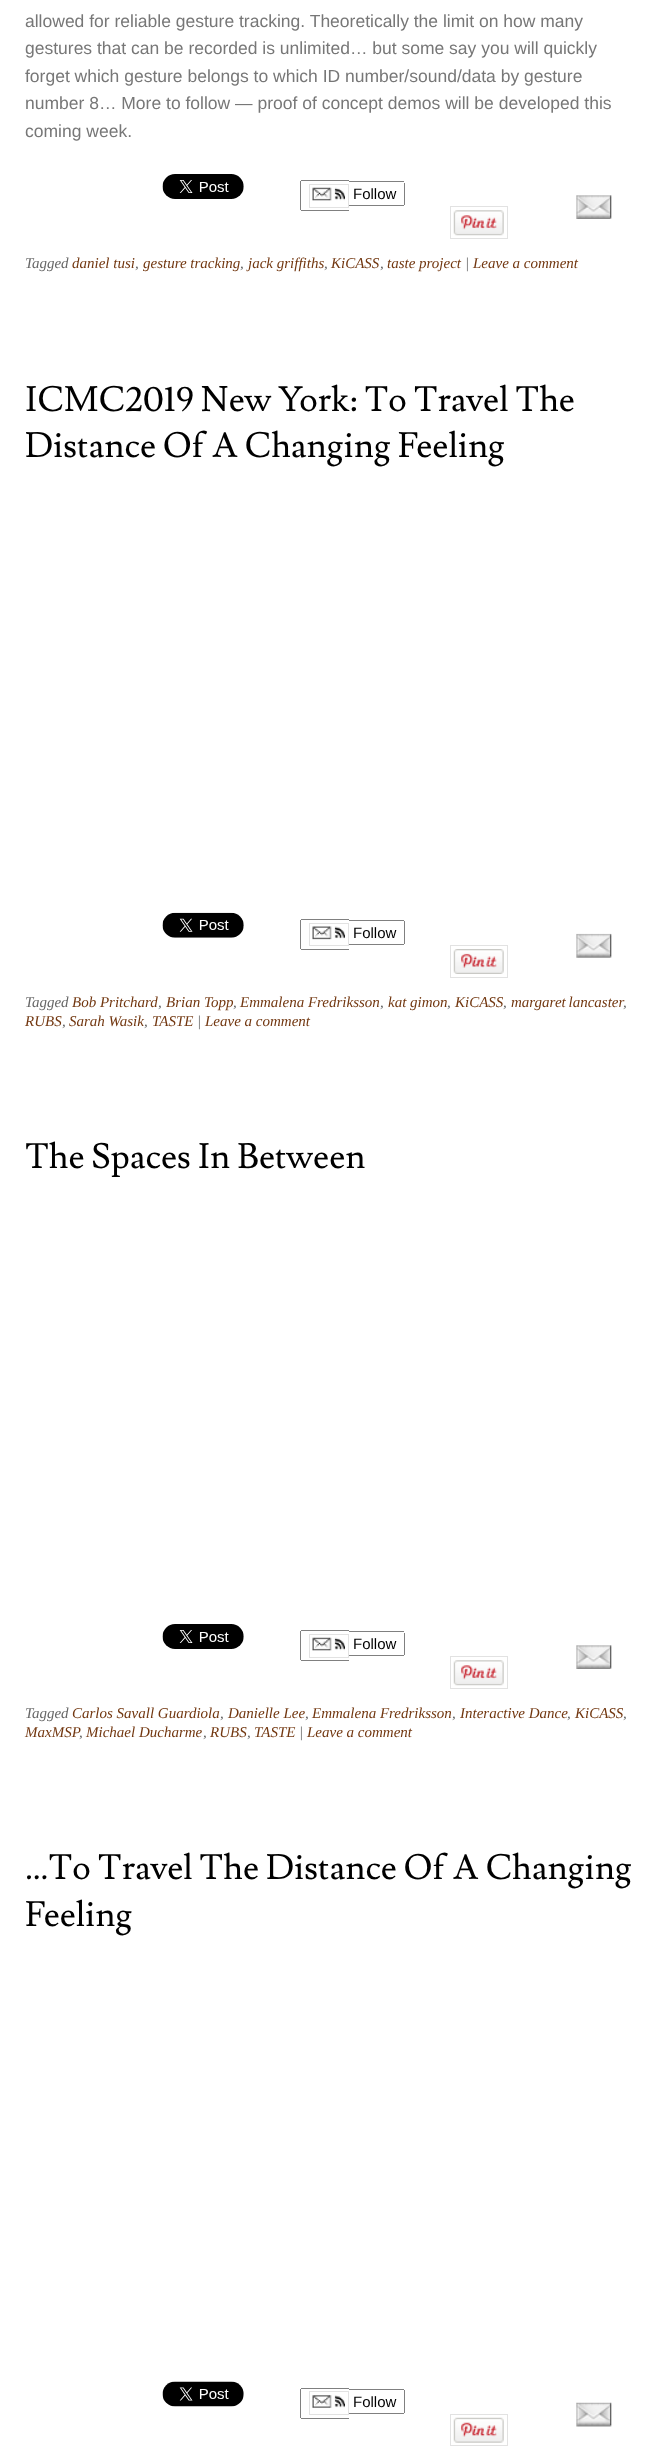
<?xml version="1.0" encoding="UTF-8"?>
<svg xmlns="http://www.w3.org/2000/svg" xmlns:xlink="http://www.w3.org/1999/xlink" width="671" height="2452">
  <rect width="100%" height="100%" fill="#ffffff" />
  <image x="162" y="174" width="82" height="25" xlink:href="image1.png" />
  <rect x="309.5" y="184.5" width="39" height="23" fill="none" stroke="#e2e2e2" />
  <image x="312" y="187" width="33" height="14" xlink:href="image2.png" />
  <rect x="301" y="180" width="48" height="1" fill="#808080" />
  <rect x="301" y="210" width="48" height="1" fill="#808080" />
  <rect x="300" y="181" width="1" height="29" fill="#808080" />
  <rect x="349" y="181" width="55" height="1" fill="#808080" />
  <rect x="404" y="183" width="1" height="22" fill="#808080" />
  <rect x="349" y="205" width="55" height="1" fill="#808080" />
  <rect x="450.5" y="206.5" width="57" height="32" fill="none" stroke="#e2e2e2" />
  <image x="453" y="210" width="51" height="26" xlink:href="image3.png" />
  <image x="576" y="195" width="36" height="24" xlink:href="image4.png" />
  <image x="162" y="912" width="82" height="26" xlink:href="image5.png" />
  <rect x="309.5" y="923.5" width="39" height="22" fill="none" stroke="#e2e2e2" />
  <image x="312" y="926" width="33" height="14" xlink:href="image6.png" />
  <rect x="301" y="919" width="48" height="1" fill="#808080" />
  <rect x="301" y="949" width="48" height="1" fill="#808080" />
  <rect x="300" y="920" width="1" height="29" fill="#808080" />
  <rect x="349" y="920" width="55" height="1" fill="#808080" />
  <rect x="404" y="921" width="1" height="23" fill="#808080" />
  <rect x="349" y="944" width="55" height="1" fill="#808080" />
  <rect x="450.5" y="945.5" width="57" height="32" fill="none" stroke="#e2e2e2" />
  <image x="453" y="949" width="51" height="25" xlink:href="image7.png" />
  <image x="576" y="933" width="36" height="25" xlink:href="image8.png" />
  <image x="162" y="1624" width="82" height="25" xlink:href="image1.png" />
  <rect x="309.5" y="1634.5" width="39" height="23" fill="none" stroke="#e2e2e2" />
  <image x="312" y="1637" width="33" height="14" xlink:href="image2.png" />
  <rect x="301" y="1630" width="48" height="1" fill="#808080" />
  <rect x="301" y="1660" width="48" height="1" fill="#808080" />
  <rect x="300" y="1631" width="1" height="29" fill="#808080" />
  <rect x="349" y="1631" width="55" height="1" fill="#808080" />
  <rect x="404" y="1633" width="1" height="22" fill="#808080" />
  <rect x="349" y="1655" width="55" height="1" fill="#808080" />
  <rect x="450.5" y="1656.5" width="57" height="32" fill="none" stroke="#e2e2e2" />
  <image x="453" y="1660" width="51" height="26" xlink:href="image9.png" />
  <image x="576" y="1645" width="36" height="24" xlink:href="image10.png" />
  <image x="162" y="2381" width="82" height="26" xlink:href="image11.png" />
  <rect x="309.5" y="2391.5" width="39" height="23" fill="none" stroke="#e2e2e2" />
  <image x="312" y="2395" width="33" height="13" xlink:href="image12.png" />
  <rect x="301" y="2388" width="48" height="1" fill="#808080" />
  <rect x="301" y="2418" width="48" height="1" fill="#808080" />
  <rect x="300" y="2389" width="1" height="29" fill="#808080" />
  <rect x="349" y="2389" width="55" height="1" fill="#808080" />
  <rect x="404" y="2390" width="1" height="23" fill="#808080" />
  <rect x="349" y="2413" width="55" height="1" fill="#808080" />
  <rect x="450.5" y="2414.5" width="57" height="31" fill="none" stroke="#e2e2e2" />
  <image x="453" y="2417" width="51" height="26" xlink:href="image13.png" />
  <image x="576" y="2402" width="36" height="25" xlink:href="image14.png" />
  <text x="25" y="27" style="font-family: Liberation Sans; font-size: 17.5px; fill: #777777">allowed for reliable gesture tracking. Theoretically the limit on how many</text>
  <text x="25" y="54" style="font-family: Liberation Sans; font-size: 17.5px; fill: #777777">gestures that can be recorded is unlimited… but some say you will quickly</text>
  <text x="25" y="82" style="font-family: Liberation Sans; font-size: 17.5px; fill: #777777">forget which gesture belongs to which ID number/sound/data by gesture</text>
  <text x="25" y="109" style="font-family: Liberation Sans; font-size: 17.5px; fill: #777777">number 8… More to follow — proof of concept demos will be developed this</text>
  <text x="25" y="137" style="font-family: Liberation Sans; font-size: 17.5px; fill: #777777">coming week.</text>
  <text x="353" y="199" style="font-family: Liberation Sans; font-size: 15px; fill: #000000">Follow</text>
  <text x="25" y="268" style="font-family: Liberation Serif; font-size: 15px; font-style: italic; fill: #666666">Tagged</text>
  <text x="72" y="268" style="font-family: Liberation Serif; font-size: 15px; font-style: italic; fill: #723710">daniel tusi</text>
  <text x="135" y="268" style="font-family: Liberation Serif; font-size: 15px; font-style: italic; fill: #666666">,</text>
  <text x="143" y="268" style="font-family: Liberation Serif; font-size: 15px; font-style: italic; fill: #723710">gesture tracking</text>
  <text x="240" y="268" style="font-family: Liberation Serif; font-size: 15px; font-style: italic; fill: #666666">,</text>
  <text x="248" y="268" style="font-family: Liberation Serif; font-size: 15px; font-style: italic; fill: #723710">jack griffiths</text>
  <text x="324" y="268" style="font-family: Liberation Serif; font-size: 15px; font-style: italic; fill: #666666">,</text>
  <text x="331" y="268" style="font-family: Liberation Serif; font-size: 15px; font-style: italic; fill: #723710">KiCASS</text>
  <text x="380" y="268" style="font-family: Liberation Serif; font-size: 15px; font-style: italic; fill: #666666">,</text>
  <text x="387" y="268" style="font-family: Liberation Serif; font-size: 15px; font-style: italic; fill: #723710">taste project</text>
  <text x="465" y="268" style="font-family: Liberation Serif; font-size: 15px; font-style: italic; fill: #666666">|</text>
  <text x="473" y="268" style="font-family: Liberation Serif; font-size: 15px; font-style: italic; fill: #723710">Leave a comment</text>
  <text x="25" y="411" style="font-family: Lusitana; font-size: 35px; fill: #000000">ICMC2019 New York: To Travel The</text>
  <text x="25" y="457" style="font-family: Lusitana; font-size: 35px; fill: #000000">Distance Of A Changing Feeling</text>
  <text x="353" y="938" style="font-family: Liberation Sans; font-size: 15px; fill: #000000">Follow</text>
  <text x="25" y="1007" style="font-family: Liberation Serif; font-size: 15px; font-style: italic; fill: #666666">Tagged</text>
  <text x="72" y="1007" style="font-family: Liberation Serif; font-size: 15px; font-style: italic; fill: #723710">Bob Pritchard</text>
  <text x="158" y="1007" style="font-family: Liberation Serif; font-size: 15px; font-style: italic; fill: #666666">,</text>
  <text x="166" y="1007" style="font-family: Liberation Serif; font-size: 15px; font-style: italic; fill: #723710">Brian Topp</text>
  <text x="233" y="1007" style="font-family: Liberation Serif; font-size: 15px; font-style: italic; fill: #666666">,</text>
  <text x="240" y="1007" style="font-family: Liberation Serif; font-size: 15px; font-style: italic; fill: #723710">Emmalena Fredriksson</text>
  <text x="380" y="1007" style="font-family: Liberation Serif; font-size: 15px; font-style: italic; fill: #666666">,</text>
  <text x="388" y="1007" style="font-family: Liberation Serif; font-size: 15px; font-style: italic; fill: #723710">kat gimon</text>
  <text x="447" y="1007" style="font-family: Liberation Serif; font-size: 15px; font-style: italic; fill: #666666">,</text>
  <text x="455" y="1007" style="font-family: Liberation Serif; font-size: 15px; font-style: italic; fill: #723710">KiCASS</text>
  <text x="503" y="1007" style="font-family: Liberation Serif; font-size: 15px; font-style: italic; fill: #666666">,</text>
  <text x="511" y="1007" word-spacing="-1" style="font-family: Liberation Serif; font-size: 15px; font-style: italic; fill: #723710">margaret lancaster</text>
  <text x="623" y="1007" style="font-family: Liberation Serif; font-size: 15px; font-style: italic; fill: #666666">,</text>
  <text x="25" y="1026" style="font-family: Liberation Serif; font-size: 15px; font-style: italic; fill: #723710">RUBS</text>
  <text x="62" y="1026" style="font-family: Liberation Serif; font-size: 15px; font-style: italic; fill: #666666">,</text>
  <text x="69" y="1026" style="font-family: Liberation Serif; font-size: 15px; font-style: italic; fill: #723710">Sarah Wasik</text>
  <text x="144" y="1026" style="font-family: Liberation Serif; font-size: 15px; font-style: italic; fill: #666666">,</text>
  <text x="152" y="1026" style="font-family: Liberation Serif; font-size: 15px; font-style: italic; fill: #723710">TASTE</text>
  <text x="197" y="1026" style="font-family: Liberation Serif; font-size: 15px; font-style: italic; fill: #666666">|</text>
  <text x="205" y="1026" style="font-family: Liberation Serif; font-size: 15px; font-style: italic; fill: #723710">Leave a comment</text>
  <text x="25" y="1168" style="font-family: Lusitana; font-size: 35px; fill: #000000">The Spaces In Between</text>
  <text x="353" y="1649" style="font-family: Liberation Sans; font-size: 15px; fill: #000000">Follow</text>
  <text x="25" y="1718" style="font-family: Liberation Serif; font-size: 15px; font-style: italic; fill: #666666">Tagged</text>
  <text x="72" y="1718" style="font-family: Liberation Serif; font-size: 15px; font-style: italic; fill: #723710">Carlos Savall Guardiola</text>
  <text x="220" y="1718" style="font-family: Liberation Serif; font-size: 15px; font-style: italic; fill: #666666">,</text>
  <text x="228" y="1718" style="font-family: Liberation Serif; font-size: 15px; font-style: italic; fill: #723710">Danielle Lee</text>
  <text x="305" y="1718" style="font-family: Liberation Serif; font-size: 15px; font-style: italic; fill: #666666">,</text>
  <text x="312" y="1718" style="font-family: Liberation Serif; font-size: 15px; font-style: italic; fill: #723710">Emmalena Fredriksson</text>
  <text x="452" y="1718" style="font-family: Liberation Serif; font-size: 15px; font-style: italic; fill: #666666">,</text>
  <text x="460" y="1718" style="font-family: Liberation Serif; font-size: 15px; font-style: italic; fill: #723710">Interactive Dance</text>
  <text x="567" y="1718" style="font-family: Liberation Serif; font-size: 15px; font-style: italic; fill: #666666">,</text>
  <text x="575" y="1718" style="font-family: Liberation Serif; font-size: 15px; font-style: italic; fill: #723710">KiCASS</text>
  <text x="623" y="1718" style="font-family: Liberation Serif; font-size: 15px; font-style: italic; fill: #666666">,</text>
  <text x="25" y="1737" style="font-family: Liberation Serif; font-size: 15px; font-style: italic; fill: #723710">MaxMSP</text>
  <text x="86" y="1737" style="font-family: Liberation Serif; font-size: 15px; font-style: italic; fill: #723710">Michael Ducharme</text>
  <text x="210" y="1737" style="font-family: Liberation Serif; font-size: 15px; font-style: italic; fill: #723710">RUBS</text>
  <text x="254" y="1737" style="font-family: Liberation Serif; font-size: 15px; font-style: italic; fill: #723710">TASTE</text>
  <text x="299" y="1737" style="font-family: Liberation Serif; font-size: 15px; font-style: italic; fill: #666666">|</text>
  <text x="307" y="1737" style="font-family: Liberation Serif; font-size: 15px; font-style: italic; fill: #723710">Leave a comment</text>
  <text x="79" y="1737" style="font-family: Liberation Serif; font-size: 15px; font-style: italic; fill: #666666">,</text>
  <text x="203" y="1737" style="font-family: Liberation Serif; font-size: 15px; font-style: italic; fill: #666666">,</text>
  <text x="247" y="1737" style="font-family: Liberation Serif; font-size: 15px; font-style: italic; fill: #666666">,</text>
  <text x="25" y="1879" style="font-family: Lusitana; font-size: 35px; fill: #000000">…To Travel The Distance Of A Changing</text>
  <text x="25" y="1926" style="font-family: Lusitana; font-size: 35px; fill: #000000">Feeling</text>
  <text x="353" y="2407" style="font-family: Liberation Sans; font-size: 15px; fill: #000000">Follow</text>
</svg>
